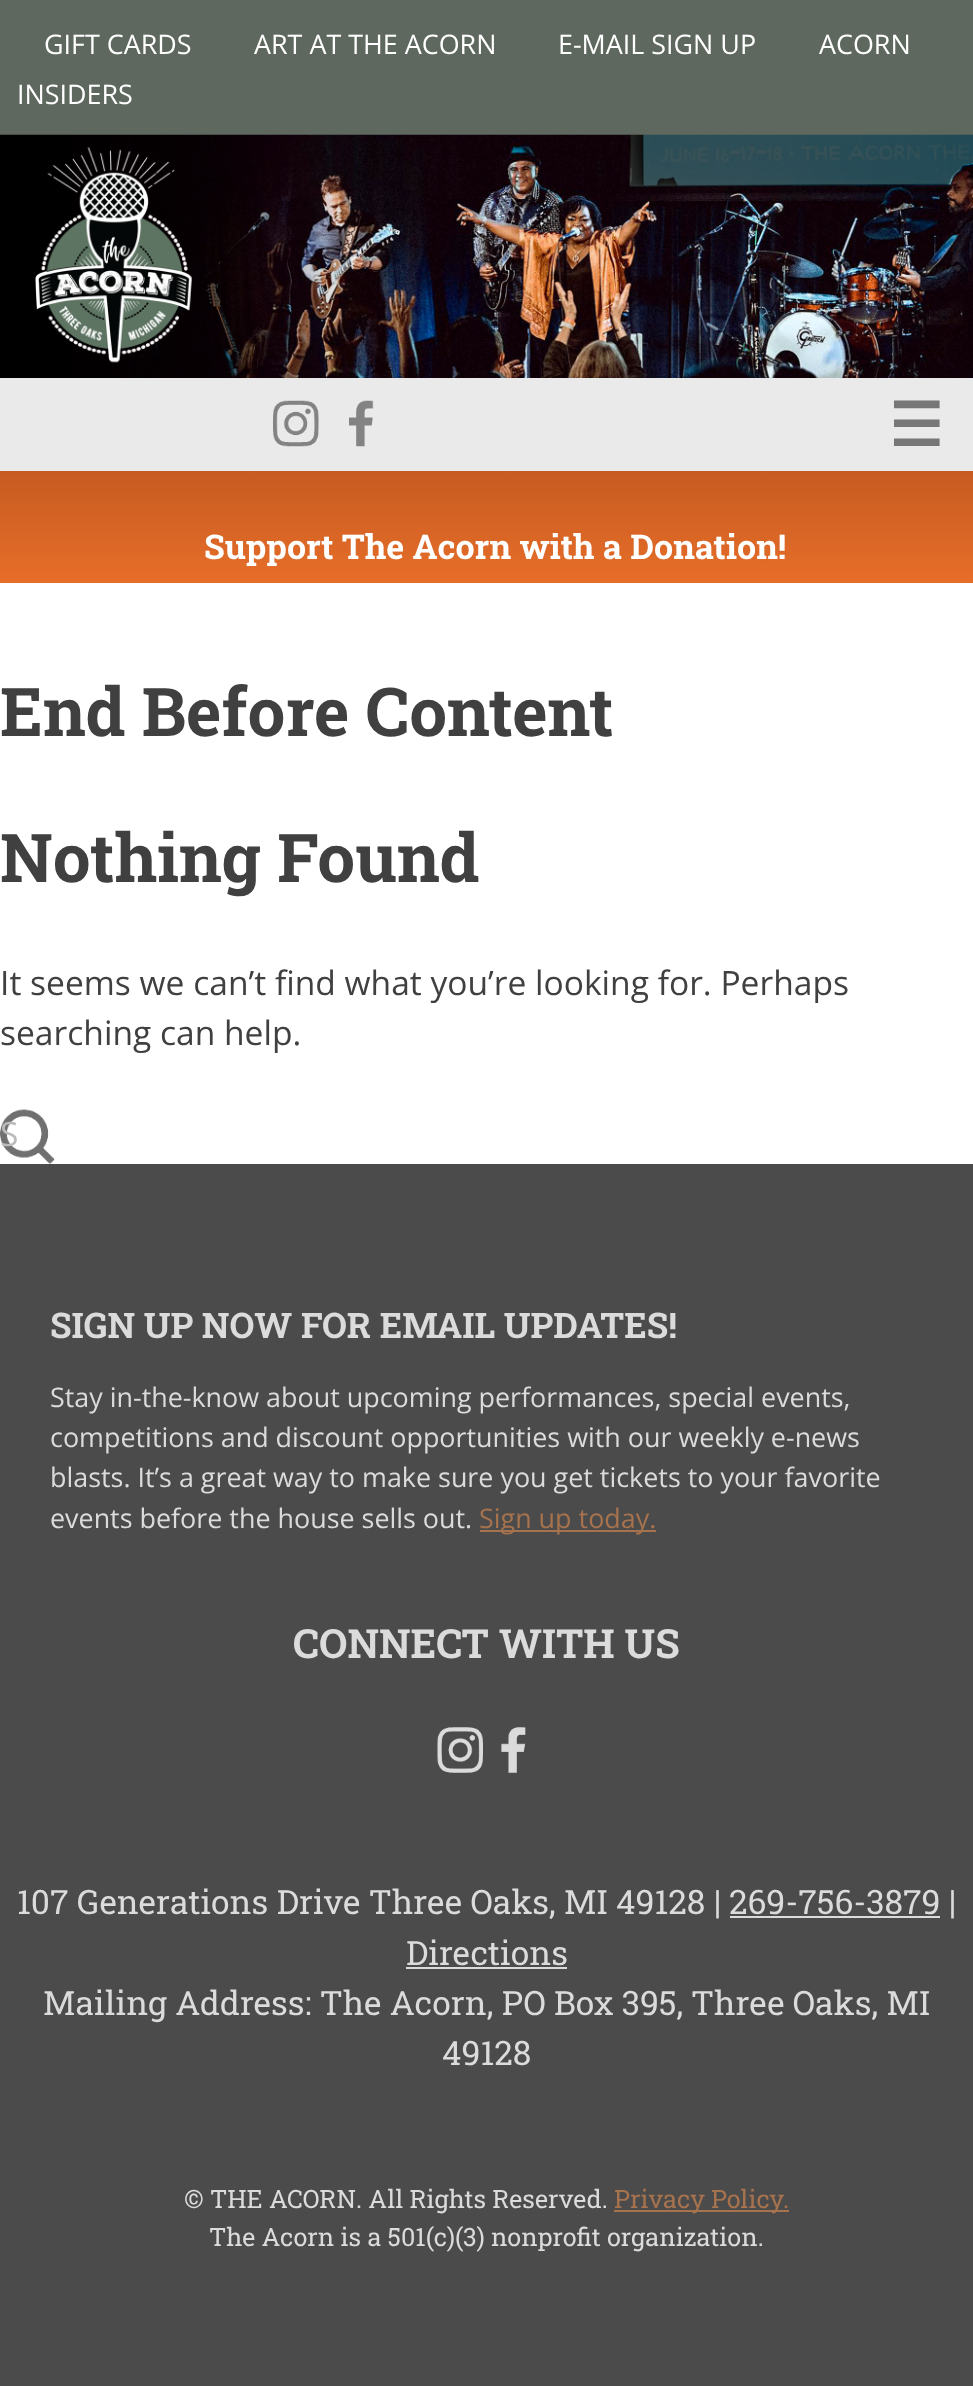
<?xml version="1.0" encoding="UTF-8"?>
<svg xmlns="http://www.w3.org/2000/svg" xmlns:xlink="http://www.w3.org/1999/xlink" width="973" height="2386">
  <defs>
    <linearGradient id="g1" gradientUnits="userSpaceOnUse" x1="487" y1="378" x2="487" y2="583"><stop offset="0.12" stop-color="#b34f1c" /><stop offset="1" stop-color="#e76e29" /></linearGradient>
  </defs>
  <rect width="100%" height="100%" fill="#ffffff" />
  <rect width="973" height="135" fill="#5e685e" />
  <image x="0" y="134" width="973" height="244" xlink:href="image1.png" />
  <rect y="378" width="973" height="93" fill="#ebeaea" />
  <image x="273" y="400" width="46" height="47" xlink:href="image2.png" />
  <image x="349" y="400" width="25" height="47" xlink:href="image3.png" />
  <rect y="471" width="973" height="112" fill="url(#g1)" />
  <image x="0" y="1109" width="55" height="55" xlink:href="image4.png" />
  <rect y="1164" width="973" height="1222" fill="#4b4b4b" />
  <rect x="480" y="1530" width="176" height="2" fill="#a6734e" />
  <image x="437" y="1727" width="46" height="46" xlink:href="image5.png" />
  <image x="501" y="1727" width="25" height="46" xlink:href="image6.png" />
  <rect x="730" y="1916" width="210" height="2" fill="#dbdbdb" />
  <rect x="406" y="1967" width="161" height="2" fill="#dbdbdb" />
  <rect x="614" y="2210" width="175" height="2" fill="#a6734e" />
  <text x="44" y="54" style="font-family: Open Sans; font-size: 26.9px; fill: #ffffff">GIFT CARDS</text>
  <text x="254" y="54" style="font-family: Open Sans; font-size: 26.9px; fill: #ffffff">ART AT THE ACORN</text>
  <text x="558" y="54" style="font-family: Open Sans; font-size: 26.9px; fill: #ffffff">E-MAIL SIGN UP</text>
  <text x="819" y="54" style="font-family: Open Sans; font-size: 26.9px; fill: #ffffff">ACORN</text>
  <text x="17" y="104" style="font-family: Open Sans; font-size: 26.9px; fill: #ffffff">INSIDERS</text>
  <text x="889" y="446" style="font-family: DejaVu Sans; font-size: 60px; font-weight: bold; fill: #777777">☰</text>
  <text x="204" y="559" style="font-family: Roboto Slab; font-size: 34px; font-weight: bold; fill: #ffffff">Support The Acorn with a Donation!</text>
  <text x="0" y="736" style="font-family: Roboto Slab; font-size: 67.25px; font-weight: bold; fill: #404040">End Before Content</text>
  <text x="0" y="882" style="font-family: Roboto Slab; font-size: 67.25px; font-weight: bold; fill: #404040">Nothing Found</text>
  <text x="0" y="995" style="font-family: Open Sans; font-size: 33.6px; fill: #404040">It seems we can’t find what you’re looking for. Perhaps</text>
  <text x="0" y="1045" style="font-family: Open Sans; font-size: 33.6px; fill: #404040">searching can help.</text>
  <text x="0" y="1146" style="font-family: Open Sans; font-size: 33.6px; fill: #bbbbbb">S</text>
  <text x="50" y="1338" style="font-family: Roboto Slab; font-size: 35.25px; font-weight: bold; fill: #dbdbdb">SIGN UP NOW FOR EMAIL UPDATES!</text>
  <text x="50" y="1407" style="font-family: Open Sans; font-size: 26.9px; fill: #dbdbdb">Stay in-the-know about upcoming performances, special events,</text>
  <text x="50" y="1447" style="font-family: Open Sans; font-size: 26.9px; fill: #dbdbdb">competitions and discount opportunities with our weekly e-news</text>
  <text x="50" y="1487" style="font-family: Open Sans; font-size: 26.9px; fill: #dbdbdb">blasts. It’s a great way to make sure you get tickets to your favorite</text>
  <text x="50" y="1528" style="font-family: Open Sans; font-size: 26.9px; fill: #dbdbdb">events before the house sells out.</text>
  <text x="479" y="1528" style="font-family: Open Sans; font-size: 26.9px; fill: #a6734e">Sign up today.</text>
  <text x="293" y="1658" style="font-family: Roboto Slab; font-size: 40.25px; font-weight: bold; fill: #dbdbdb">CONNECT WITH US</text>
  <text x="17" y="1914" style="font-family: Roboto Slab; font-size: 33.6px; fill: #dbdbdb">107 Generations Drive Three Oaks, MI 49128 |</text>
  <text x="729" y="1914" style="font-family: Roboto Slab; font-size: 33.6px; fill: #dbdbdb">269-756-3879 |</text>
  <text x="406" y="1965" style="font-family: Roboto Slab; font-size: 33.6px; fill: #dbdbdb">Directions</text>
  <text x="43" y="2015" style="font-family: Roboto Slab; font-size: 33.6px; fill: #dbdbdb">Mailing Address: The Acorn, PO Box 395,</text>
  <text x="691" y="2015" style="font-family: Roboto Slab; font-size: 33.6px; fill: #dbdbdb">Three Oaks, MI</text>
  <text x="442" y="2065" style="font-family: Roboto Slab; font-size: 33.6px; fill: #dbdbdb">49128</text>
  <text x="184" y="2208" style="font-family: Roboto Slab; font-size: 25.2px; fill: #dbdbdb">© THE ACORN. All Rights Reserved.</text>
  <text x="614" y="2208" style="font-family: Roboto Slab; font-size: 25.2px; fill: #a6734e">Privacy Policy.</text>
  <text x="209" y="2246" style="font-family: Roboto Slab; font-size: 25.2px; fill: #dbdbdb">The Acorn is a 501(c)(3) nonprofit organization.</text>
</svg>
